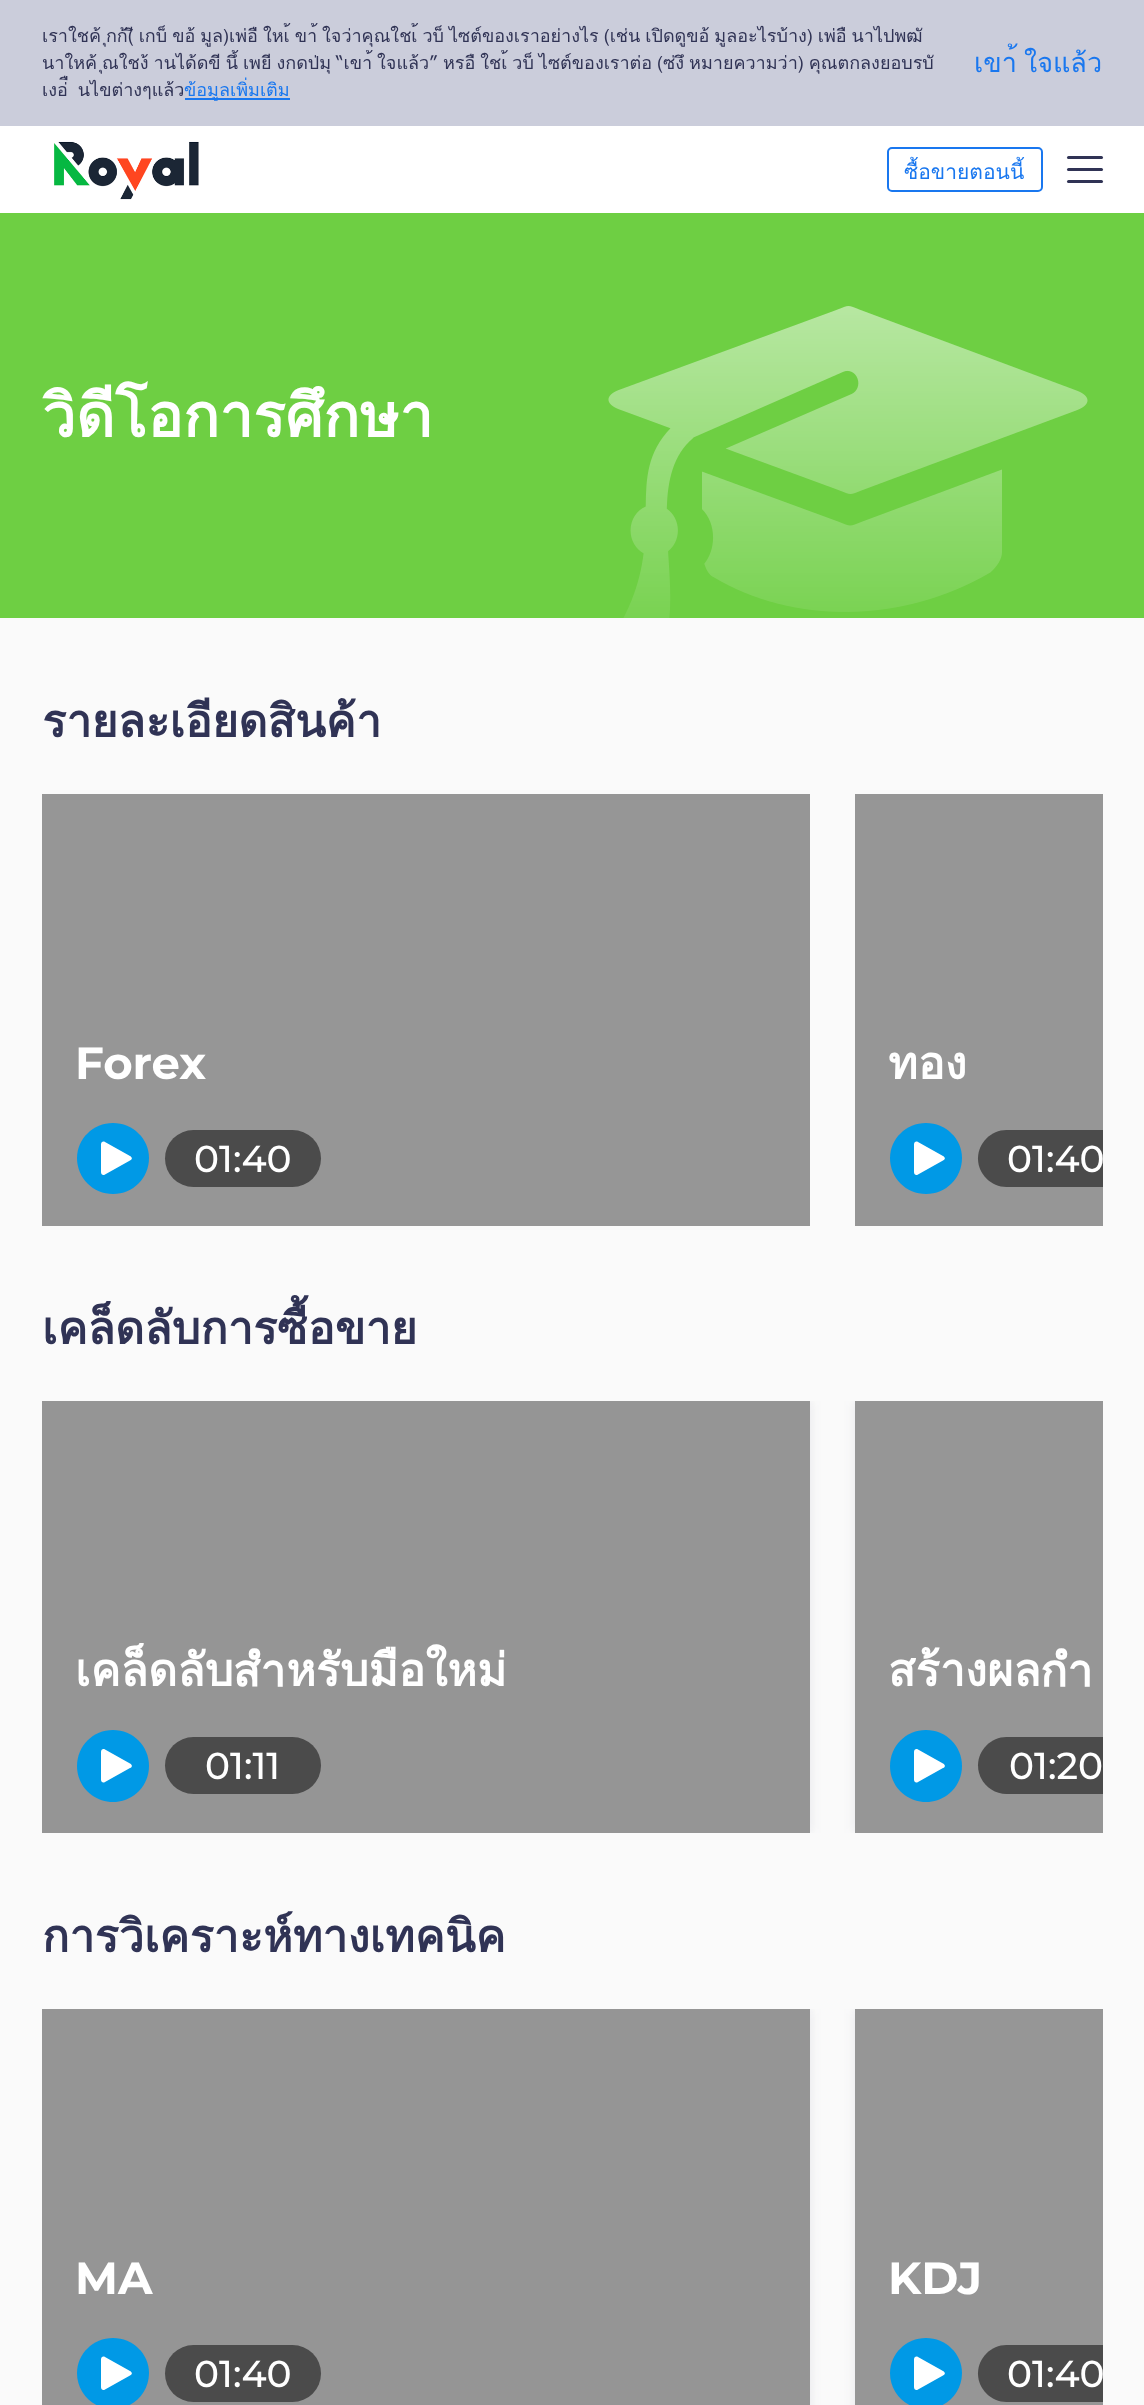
<?xml version="1.0" encoding="UTF-8"?>
<svg xmlns="http://www.w3.org/2000/svg" xmlns:xlink="http://www.w3.org/1999/xlink" width="1144" height="2405">
  <defs>
    <clipPath id="clip1"><rect x="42" y="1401" width="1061" height="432" /></clipPath>
    <clipPath id="clip2"><rect x="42" y="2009" width="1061" height="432" /></clipPath>
  </defs>
  <rect width="100%" height="100%" fill="#ffffff" />
  <rect width="1144" height="126" fill="#cbcddb" />
  <rect x="185" y="98" width="105" height="2" fill="#1977ef" />
  <image x="54" y="141" width="145" height="59" xlink:href="image1.png" />
  <rect x="888" y="148" width="154" height="43" rx="4" fill="none" stroke="#1977ef" stroke-width="2" />
  <rect x="1067" y="156" width="36" height="3" rx="1.5" fill="#303355" />
  <rect x="1067" y="168" width="36" height="3" rx="1.5" fill="#303355" />
  <rect x="1067" y="180" width="36" height="3" rx="1.5" fill="#303355" />
  <rect y="618" width="1144" height="1787" fill="#fafafa" />
  <rect y="213" width="1144" height="405" fill="#6ecf43" />
  <image x="608" y="306" width="480" height="312" xlink:href="image2.png" />
  <rect x="42" y="794" width="768" height="432" fill="#000000" fill-opacity="0.4" />
  <path d="M 77 1158 c 0 -19 16 -35 36 -35 c 20 0 36 16 36 35 c 0 20 -16 36 -36 36 c -20 0 -36 -16 -36 -36" fill="#0099e6" />
  <path d="M 105 1142 c -2 -1 -4 0 -4 2.5 v 27.5 c 0 2.5 2 4 4 2.5 l 25 -14 c 2.5 -1 2.5 -3 0 -4.5 z" fill="#ffffff" />
  <rect x="165" y="1130" width="156" height="57" rx="28.5" fill="#4b4b4b" />
  <rect x="855" y="794" width="248" height="432" fill="#000000" fill-opacity="0.4" />
  <path d="M 890 1158 c 0 -19 16 -35 36 -35 c 20 0 36 16 36 35 c 0 20 -16 36 -36 36 c -20 0 -36 -16 -36 -36" fill="#0099e6" />
  <path d="M 918 1142 c -2 -1 -4 0 -4 2.5 v 27.5 c 0 2.5 2 4 4 2.5 l 25 -14 c 2.5 -1 2.5 -3 0 -4.5 z" fill="#ffffff" />
  <path d="M 1006.5 1130 h 96.5 v 57 h -96.5 c -15.5 0 -28.5 -13 -28.5 -28.5 c 0 -15.5 13 -28.5 28.5 -28.5 z" fill="#4b4b4b" />
  <g clip-path="url(#clip1)">
    <rect x="42" y="1401" width="768" height="432" fill="#303355" fill-opacity="0.1" filter="blur(6px)" />
  </g>
  <rect x="42" y="1401" width="768" height="432" fill="#959595" />
  <path d="M 77 1766 c 0 -20 16 -36 36 -36 c 20 0 36 16 36 36 c 0 20 -16 36 -36 36 c -20 0 -36 -16 -36 -36" fill="#0099e6" />
  <path d="M 105 1749.5 c -2 -1 -4 0 -4 2.5 v 27.5 c 0 2.5 2 4 4 2.5 l 25 -14 c 2.5 -1 2.5 -3 0 -4.5 z" fill="#ffffff" />
  <rect x="165" y="1737" width="156" height="57" rx="28.5" fill="#4b4b4b" />
  <g clip-path="url(#clip1)">
    <rect x="855" y="1401" width="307" height="432" fill="#303355" fill-opacity="0.1" filter="blur(6px)" />
  </g>
  <rect x="855" y="1401" width="248" height="432" fill="#969696" />
  <path d="M 890 1766 c 0 -20 16 -36 36 -36 c 20 0 36 16 36 36 c 0 20 -16 36 -36 36 c -20 0 -36 -16 -36 -36" fill="#0099e6" />
  <path d="M 918 1749.5 c -2 -1 -4 0 -4 2.5 v 27.5 c 0 2.5 2 4 4 2.5 l 25 -14 c 2.5 -1 2.5 -3 0 -4.5 z" fill="#ffffff" />
  <path d="M 1006.5 1737 h 96.5 v 57 h -96.5 c -15.5 0 -28.5 -13 -28.5 -28.5 c 0 -15.5 13 -28.5 28.5 -28.5 z" fill="#4b4b4b" />
  <g clip-path="url(#clip2)">
    <rect x="42" y="2009" width="768" height="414" fill="#303355" fill-opacity="0.1" filter="blur(6px)" />
  </g>
  <rect x="42" y="2009" width="768" height="396" fill="#959595" />
  <path d="M 77 2373 c 0 -19 16 -35 36 -35 c 20 0 36 16 36 35 c 0 20 -16 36 -36 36 c -20 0 -36 -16 -36 -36" fill="#0099e6" />
  <path d="M 105 2357 c -2 -1 -4 0 -4 2.5 v 27.5 c 0 2.5 2 4 4 2.5 l 25 -14 c 2.5 -1 2.5 -3 0 -4.5 z" fill="#ffffff" />
  <rect x="165" y="2345" width="156" height="57" rx="28.5" fill="#4b4b4b" />
  <g clip-path="url(#clip2)">
    <rect x="855" y="2009" width="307" height="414" fill="#303355" fill-opacity="0.1" filter="blur(6px)" />
  </g>
  <rect x="855" y="2009" width="248" height="396" fill="#969696" />
  <path d="M 890 2373 c 0 -19 16 -35 36 -35 c 20 0 36 16 36 35 c 0 20 -16 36 -36 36 c -20 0 -36 -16 -36 -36" fill="#0099e6" />
  <path d="M 918 2357 c -2 -1 -4 0 -4 2.5 v 27.5 c 0 2.5 2 4 4 2.5 l 25 -14 c 2.5 -1 2.5 -3 0 -4.5 z" fill="#ffffff" />
  <path d="M 1006.5 2345 h 96.5 v 57 h -96.5 c -15.5 0 -28.5 -13 -28.5 -28.5 c 0 -15.5 13 -28.5 28.5 -28.5 z" fill="#4b4b4b" />
  <text x="42" y="42" word-spacing="-1.1" style="font-family: Loma; font-size: 18px; fill: #303355">เราใชค้ ุกก้(ี เกบ็ ขอ้ มูล)เพ่อื ใหเ้ ขา้ ใจว่าคุณใชเ้ วบ็ ไซต์ของเราอย่างไร (เช่น เปิดดูขอ้ มูลอะไรบ้าง) เพ่อื นาไปพฒั</text>
  <text x="42" y="69" word-spacing="-1.1" style="font-family: Loma; font-size: 18px; fill: #303355">นาใหค้ ุณใชง้ านได้ดขี นึ้ เพยี งกดป่มุ “เขา้ ใจแล้ว” หรอื ใชเ้ วบ็ ไซต์ของเราต่อ (ซ่งึ หมายความว่า) คุณตกลงยอบรบั</text>
  <text x="42" y="96" word-spacing="4" style="font-family: Loma; font-size: 18px; fill: #303355">เงอ่ื นไขต่างๆแล้ว</text>
  <text x="184" y="96" style="font-family: Loma; font-size: 18px; fill: #1977ef">ข้อมูลเพิ่มเติม</text>
  <text x="974" y="72" word-spacing="-2" style="font-family: Loma; font-size: 27px; fill: #1977ef">เขา้ ใจแล้ว</text>
  <text x="904" y="179" style="font-family: Loma; font-size: 21px; fill: #1977ef">ซื้อขายตอนนี้</text>
  <text x="42" y="437" style="font-family: Loma; font-size: 60px; font-weight: bold; fill: #ffffff">วิดีโอการศึกษา</text>
  <text x="42" y="737" style="font-family: Loma; font-size: 45px; font-weight: bold; fill: #303355">รายละเอียดสินค้า</text>
  <text x="75" y="1079" style="font-family: Montserrat; font-size: 45px; font-weight: bold; fill: #ffffff">Forex</text>
  <text x="194" y="1172" style="font-family: Montserrat; font-size: 37.5px; font-weight: 500; fill: #ffffff">01:40</text>
  <text x="888" y="1079" style="font-family: Loma; font-size: 45px; font-weight: bold; fill: #ffffff">ทอง</text>
  <text x="1007" y="1172" style="font-family: Montserrat; font-size: 37.5px; font-weight: 500; fill: #ffffff">01:40</text>
  <text x="42" y="1344" style="font-family: Loma; font-size: 45px; font-weight: bold; fill: #303355">เคล็ดลับการซื้อขาย</text>
  <text x="75" y="1686" style="font-family: Loma; font-size: 45px; font-weight: bold; fill: #ffffff">เคล็ดลับสำหรับมือใหม่</text>
  <text x="205" y="1779" style="font-family: Montserrat; font-size: 37.5px; font-weight: 500; fill: #ffffff">01:11</text>
  <text x="888" y="1686" style="font-family: Loma; font-size: 45px; font-weight: bold; fill: #ffffff">สร้างผลกำ</text>
  <text x="1009" y="1779" style="font-family: Montserrat; font-size: 37.5px; font-weight: 500; fill: #ffffff">01:20</text>
  <text x="42" y="1952" style="font-family: Loma; font-size: 45px; font-weight: bold; fill: #303355">การวิเคราะห์ทางเทคนิค</text>
  <text x="75" y="2294" style="font-family: Montserrat; font-size: 45px; font-weight: bold; fill: #ffffff">MA</text>
  <text x="194" y="2387" style="font-family: Montserrat; font-size: 37.5px; font-weight: 500; fill: #ffffff">01:40</text>
  <text x="888" y="2294" style="font-family: Montserrat; font-size: 45px; font-weight: bold; fill: #ffffff">KDJ</text>
  <text x="1007" y="2387" style="font-family: Montserrat; font-size: 37.5px; font-weight: 500; fill: #ffffff">01:40</text>
</svg>
